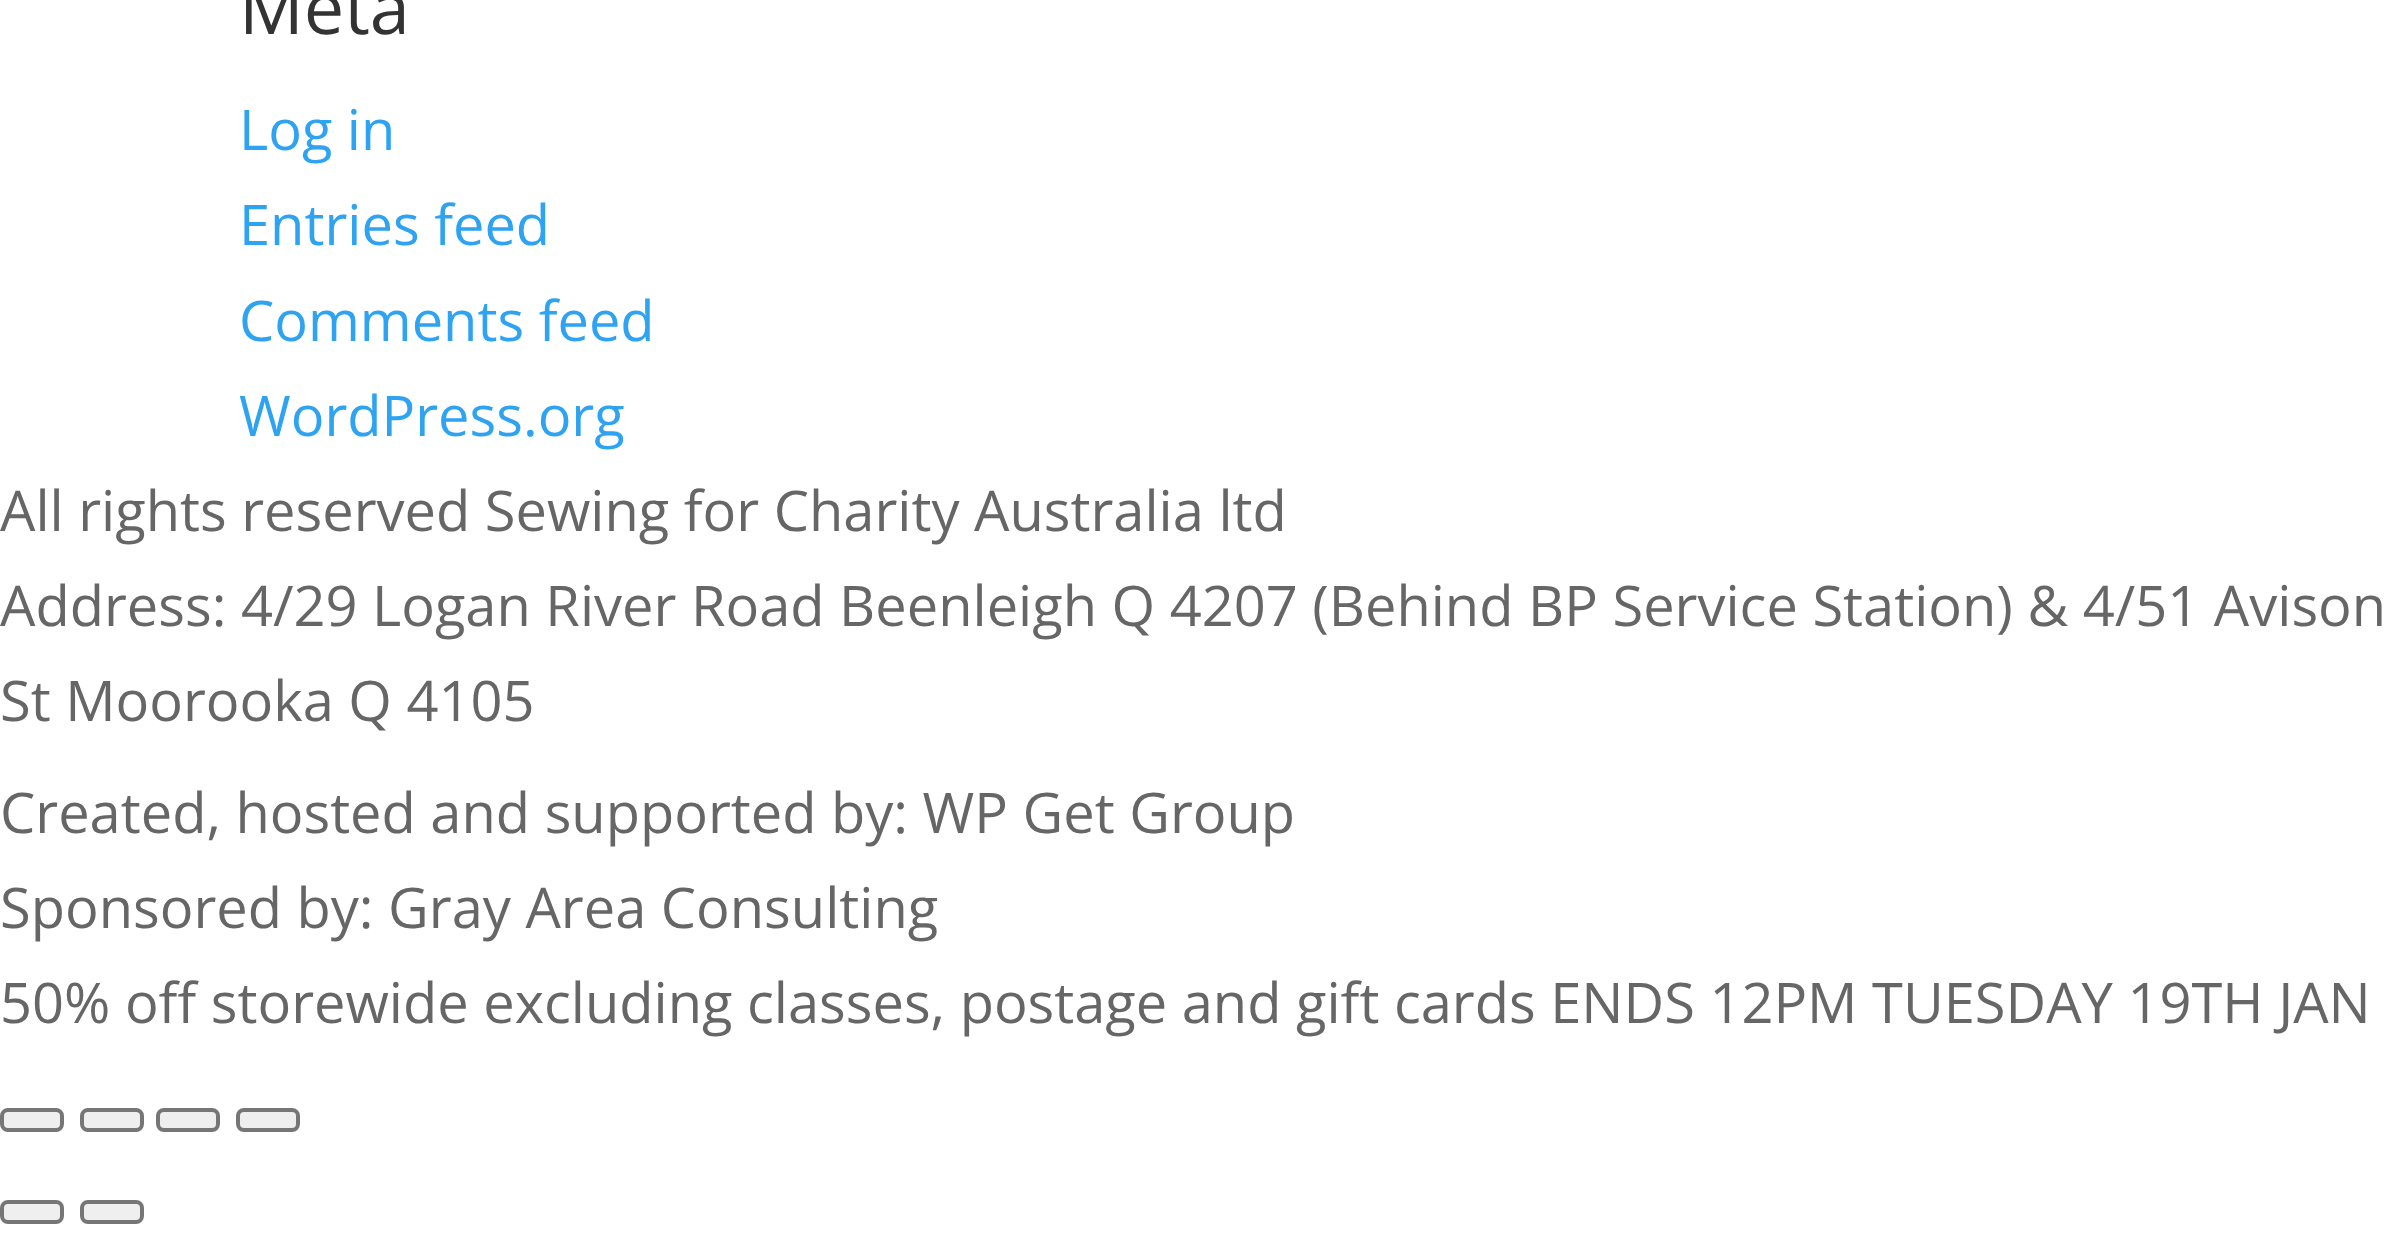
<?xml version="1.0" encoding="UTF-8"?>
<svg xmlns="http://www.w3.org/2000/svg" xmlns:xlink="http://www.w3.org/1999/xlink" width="2385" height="1240">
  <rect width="100%" height="100%" fill="#ffffff" />
  <rect x="2" y="1110" width="60" height="20" rx="6" fill="#efefef" stroke="#767676" stroke-width="4" />
  <rect x="82" y="1110" width="60" height="20" rx="6" fill="#efefef" stroke="#767676" stroke-width="4" />
  <rect x="158" y="1110" width="60" height="20" rx="6" fill="#efefef" stroke="#767676" stroke-width="4" />
  <rect x="238" y="1110" width="60" height="20" rx="6" fill="#efefef" stroke="#767676" stroke-width="4" />
  <rect x="2" y="1202" width="60" height="20" rx="6" fill="#efefef" stroke="#767676" stroke-width="4" />
  <rect x="82" y="1202" width="60" height="20" rx="6" fill="#efefef" stroke="#767676" stroke-width="4" />
  <text x="239" y="34" style="font-family: Open Sans; font-size: 72px; fill: #333333">Meta</text>
  <text x="239" y="150" style="font-family: Open Sans; font-size: 56px; fill: #2ea3f2">Log in</text>
  <text x="239" y="245" style="font-family: Open Sans; font-size: 56px; fill: #2ea3f2">Entries feed</text>
  <text x="239" y="341" style="font-family: Open Sans; font-size: 56px; fill: #2ea3f2">Comments feed</text>
  <text x="239" y="436" style="font-family: Open Sans; font-size: 56px; fill: #2ea3f2">WordPress.org</text>
  <text x="0" y="531" style="font-family: Open Sans; font-size: 56px; fill: #666666">All rights reserved Sewing for Charity Australia ltd</text>
  <text x="0" y="626" style="font-family: Open Sans; font-size: 56px; fill: #666666">Address: 4/29 Logan River Road Beenleigh Q 4207 (Behind BP Service Station) &amp; 4/51 Avison</text>
  <text x="0" y="721" style="font-family: Open Sans; font-size: 56px; fill: #666666">St Moorooka Q 4105</text>
  <text x="0" y="833" style="font-family: Open Sans; font-size: 56px; fill: #666666">Created, hosted and supported by: WP Get Group</text>
  <text x="0" y="928" style="font-family: Open Sans; font-size: 56px; fill: #666666">Sponsored by: Gray Area Consulting</text>
  <text x="0" y="1023" style="font-family: Open Sans; font-size: 56px; fill: #666666">50% off storewide excluding classes, postage and gift cards ENDS 12PM TUESDAY 19TH JAN</text>
</svg>
